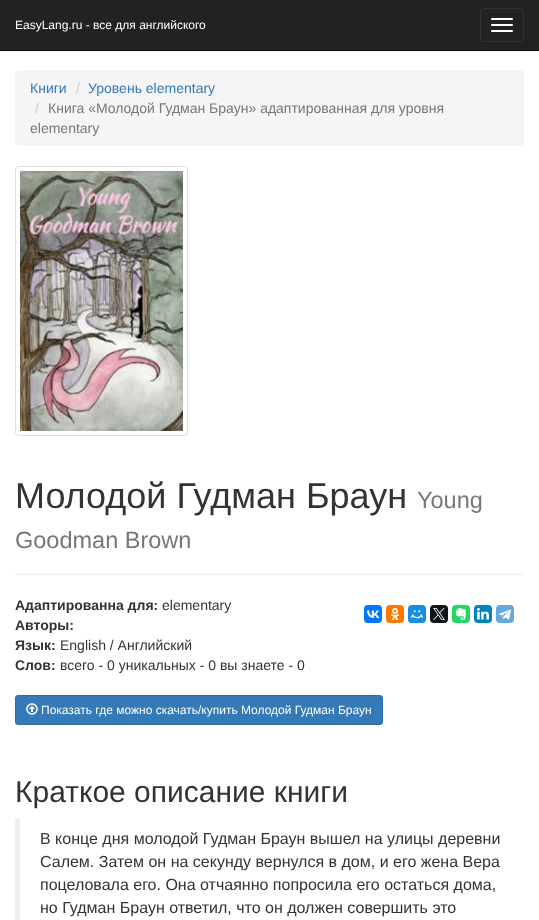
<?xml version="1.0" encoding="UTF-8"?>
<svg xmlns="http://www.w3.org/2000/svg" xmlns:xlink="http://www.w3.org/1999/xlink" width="539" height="920">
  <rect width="100%" height="100%" fill="#ffffff" />
  <rect width="539" height="50" fill="#222222" />
  <rect y="50" width="539" height="1" fill="#080808" />
  <rect x="480.5" y="8.5" width="43" height="33" rx="3.5" fill="none" stroke="#333333" />
  <rect x="491" y="18" width="22" height="2" rx="1" fill="#ffffff" />
  <rect x="491" y="24" width="22" height="2" rx="1" fill="#ffffff" />
  <rect x="491" y="30" width="22" height="2" rx="1" fill="#ffffff" />
  <rect x="15" y="70" width="509" height="76" rx="4" fill="#f5f5f5" />
  <rect x="15.5" y="166.5" width="172" height="269" rx="3.5" fill="none" stroke="#dddddd" />
  <image x="20" y="171" width="163" height="260" xlink:href="image1.png" />
  <rect x="15" y="574" width="509" height="1" fill="#eeeeee" />
  <rect x="364" y="605" width="18" height="18" rx="4" fill="#0077ff" />
  <image x="367" y="610" width="12" height="8" xlink:href="image2.png" />
  <rect x="386" y="605" width="18" height="18" rx="4" fill="#ff7700" />
  <image x="391" y="608" width="8" height="12" xlink:href="image3.png" />
  <rect x="408" y="605" width="18" height="18" rx="4" fill="#168de2" />
  <image x="411" y="610" width="12" height="9" xlink:href="image4.png" />
  <rect x="430" y="605" width="18" height="18" rx="4" fill="#0f1419" />
  <image x="433" y="608" width="12" height="12" xlink:href="image5.png" />
  <rect x="452" y="605" width="18" height="18" rx="4" fill="#24d666" />
  <image x="455" y="608" width="11" height="12" xlink:href="image6.png" />
  <rect x="474" y="605" width="18" height="18" rx="4" fill="#0083be" />
  <image x="477" y="608" width="12" height="12" xlink:href="image7.png" />
  <rect x="496" y="605" width="18" height="18" rx="4" fill="#64a9dc" />
  <image x="499" y="609" width="12" height="11" xlink:href="image8.png" />
  <rect x="15.5" y="695.5" width="367" height="29" rx="2.5" fill="#337ab7" stroke="#2e6da4" />
  <image x="26" y="703" width="12" height="12" xlink:href="image9.png" />
  <rect x="15" y="818" width="5" height="102" fill="#eeeeee" />
  <text x="15" y="29" style="font-family: Liberation Sans; font-size: 12px; fill: #ffffff">EasyLang.ru - все для английского</text>
  <text x="30" y="93" style="font-family: Liberation Sans; font-size: 14px; fill: #337ab7">Книги</text>
  <text x="76" y="93" style="font-family: Liberation Sans; font-size: 14px; fill: #cccccc">/</text>
  <text x="88" y="93" style="font-family: Liberation Sans; font-size: 14px; fill: #337ab7">Уровень elementary</text>
  <text x="35" y="113" style="font-family: Liberation Sans; font-size: 14px; fill: #cccccc">/</text>
  <text x="48" y="113" style="font-family: Liberation Sans; font-size: 14px; fill: #777777">Книга «Молодой Гудман Браун» адаптированная для уровня</text>
  <text x="30" y="133" style="font-family: Liberation Sans; font-size: 14px; fill: #777777">elementary</text>
  <text x="15" y="508" style="font-family: Liberation Sans; font-size: 36px; fill: #333333">Молодой Гудман Браун</text>
  <text x="417" y="508" style="font-family: Liberation Sans; font-size: 23.5px; fill: #777777">Young</text>
  <text x="15" y="548" style="font-family: Liberation Sans; font-size: 23.5px; fill: #777777">Goodman Brown</text>
  <text x="15" y="610" style="font-family: Liberation Sans; font-size: 14px; font-weight: bold; fill: #333333">Адаптированна для:</text>
  <text x="162" y="610" style="font-family: Liberation Sans; font-size: 14px; fill: #333333">elementary</text>
  <text x="15" y="630" style="font-family: Liberation Sans; font-size: 14px; font-weight: bold; fill: #333333">Авторы:</text>
  <text x="15" y="650" style="font-family: Liberation Sans; font-size: 14px; font-weight: bold; fill: #333333">Язык:</text>
  <text x="60" y="650" style="font-family: Liberation Sans; font-size: 14px; fill: #333333">English / Английский</text>
  <text x="15" y="670" style="font-family: Liberation Sans; font-size: 14px; font-weight: bold; fill: #333333">Слов:</text>
  <text x="60" y="670" style="font-family: Liberation Sans; font-size: 14px; fill: #333333">всего - 0 уникальных - 0 вы знаете - 0</text>
  <text x="41" y="714" style="font-family: Liberation Sans; font-size: 12px; fill: #ffffff">Показать где можно скачать/купить Молодой Гудман Браун</text>
  <text x="15" y="802" style="font-family: Liberation Sans; font-size: 30px; fill: #333333">Краткое описание книги</text>
  <text x="40" y="844" style="font-family: Liberation Sans; font-size: 16px; fill: #333333">В конце дня молодой Гудман Браун вышел на улицы деревни</text>
  <text x="40" y="867" style="font-family: Liberation Sans; font-size: 16px; fill: #333333">Салем. Затем он на секунду вернулся в дом, и его жена Вера</text>
  <text x="40" y="890" style="font-family: Liberation Sans; font-size: 16px; fill: #333333">поцеловала его. Она отчаянно попросила его остаться дома,</text>
  <text x="40" y="913" style="font-family: Liberation Sans; font-size: 16px; fill: #333333">но Гудман Браун ответил, что он должен совершить это</text>
</svg>
